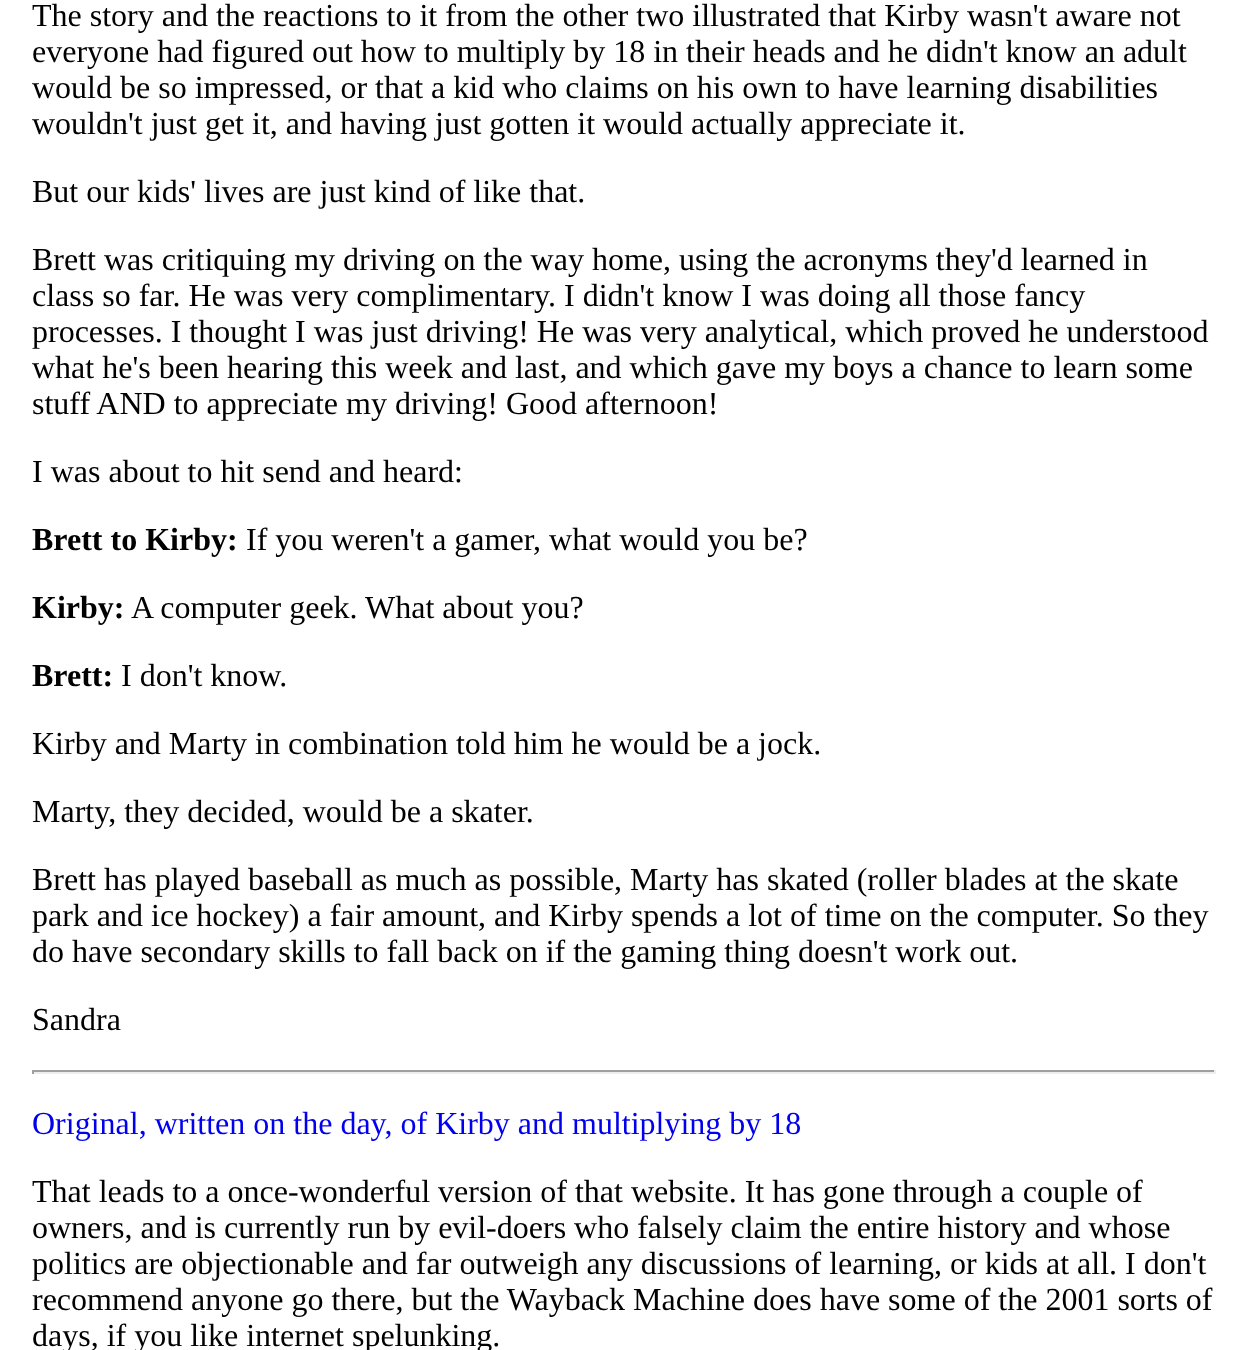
<?xml version="1.0" encoding="UTF-8"?>
<svg xmlns="http://www.w3.org/2000/svg" xmlns:xlink="http://www.w3.org/1999/xlink" width="1248" height="1350">
  <rect width="100%" height="100%" fill="#ffffff" />
  <rect x="32" y="1070" width="1184" height="2" fill="#9f9f9f" />
  <rect x="1214" y="1070" width="2" height="4" fill="#eeeeee" />
  <rect x="32" y="1072" width="1184" height="2" fill="#eeeeee" />
  <rect x="32" y="1070" width="2" height="4" fill="#9f9f9f" />
  <text x="32" y="26" style="font-family: Liberation Serif; font-size: 32px; fill: #000000">The story and the reactions to it from the other two illustrated that Kirby wasn't aware not</text>
  <text x="32" y="62" style="font-family: Liberation Serif; font-size: 32px; fill: #000000">everyone had figured out how to multiply by 18 in their heads and he didn't know an adult</text>
  <text x="32" y="98" style="font-family: Liberation Serif; font-size: 32px; fill: #000000">would be so impressed, or that a kid who claims on his own to have learning disabilities</text>
  <text x="32" y="134" style="font-family: Liberation Serif; font-size: 32px; fill: #000000">wouldn't just get it, and having just gotten it would actually appreciate it.</text>
  <text x="32" y="202" style="font-family: Liberation Serif; font-size: 32px; fill: #000000">But our kids' lives are just kind of like that.</text>
  <text x="32" y="270" style="font-family: Liberation Serif; font-size: 32px; fill: #000000">Brett was critiquing my driving on the way home, using the acronyms they'd learned in</text>
  <text x="32" y="306" style="font-family: Liberation Serif; font-size: 32px; fill: #000000">class so far. He was very complimentary. I didn't know I was doing all those fancy</text>
  <text x="32" y="342" style="font-family: Liberation Serif; font-size: 32px; fill: #000000">processes. I thought I was just driving! He was very analytical, which proved he understood</text>
  <text x="32" y="378" style="font-family: Liberation Serif; font-size: 32px; fill: #000000">what he's been hearing this week and last, and which gave my boys a chance to learn some</text>
  <text x="32" y="414" style="font-family: Liberation Serif; font-size: 32px; fill: #000000">stuff AND to appreciate my driving! Good afternoon!</text>
  <text x="32" y="482" style="font-family: Liberation Serif; font-size: 32px; fill: #000000">I was about to hit send and heard:</text>
  <text x="32" y="550" style="font-family: Liberation Serif; font-size: 32px; font-weight: bold; fill: #000000">Brett to Kirby:</text>
  <text x="246" y="550" style="font-family: Liberation Serif; font-size: 32px; fill: #000000">If you weren't a gamer, what would you be?</text>
  <text x="32" y="618" style="font-family: Liberation Serif; font-size: 32px; font-weight: bold; fill: #000000">Kirby:</text>
  <text x="131" y="618" style="font-family: Liberation Serif; font-size: 32px; fill: #000000">A computer geek. What about you?</text>
  <text x="32" y="686" style="font-family: Liberation Serif; font-size: 32px; font-weight: bold; fill: #000000">Brett:</text>
  <text x="121" y="686" style="font-family: Liberation Serif; font-size: 32px; fill: #000000">I don't know.</text>
  <text x="32" y="754" style="font-family: Liberation Serif; font-size: 32px; fill: #000000">Kirby and Marty in combination told him he would be a jock.</text>
  <text x="32" y="822" style="font-family: Liberation Serif; font-size: 32px; fill: #000000">Marty, they decided, would be a skater.</text>
  <text x="32" y="890" style="font-family: Liberation Serif; font-size: 32px; fill: #000000">Brett has played baseball as much as possible, Marty has skated (roller blades at the skate</text>
  <text x="32" y="926" style="font-family: Liberation Serif; font-size: 32px; fill: #000000">park and ice hockey) a fair amount, and Kirby spends a lot of time on the computer. So they</text>
  <text x="32" y="962" style="font-family: Liberation Serif; font-size: 32px; fill: #000000">do have secondary skills to fall back on if the gaming thing doesn't work out.</text>
  <text x="32" y="1030" style="font-family: Liberation Serif; font-size: 32px; fill: #000000">Sandra</text>
  <text x="32" y="1134" style="font-family: Liberation Serif; font-size: 32px; fill: #0000ee">Original, written on the day, of Kirby and multiplying by 18</text>
  <text x="32" y="1202" style="font-family: Liberation Serif; font-size: 32px; fill: #000000">That leads to a once-wonderful version of that website. It has gone through a couple of</text>
  <text x="32" y="1238" style="font-family: Liberation Serif; font-size: 32px; fill: #000000">owners, and is currently run by evil-doers who falsely claim the entire history and whose</text>
  <text x="32" y="1274" style="font-family: Liberation Serif; font-size: 32px; fill: #000000">politics are objectionable and far outweigh any discussions of learning, or kids at all. I don't</text>
  <text x="32" y="1310" style="font-family: Liberation Serif; font-size: 32px; fill: #000000">recommend anyone go there, but the Wayback Machine does have some of the 2001 sorts of</text>
  <text x="32" y="1346" style="font-family: Liberation Serif; font-size: 32px; fill: #000000">days, if you like internet spelunking.</text>
</svg>
